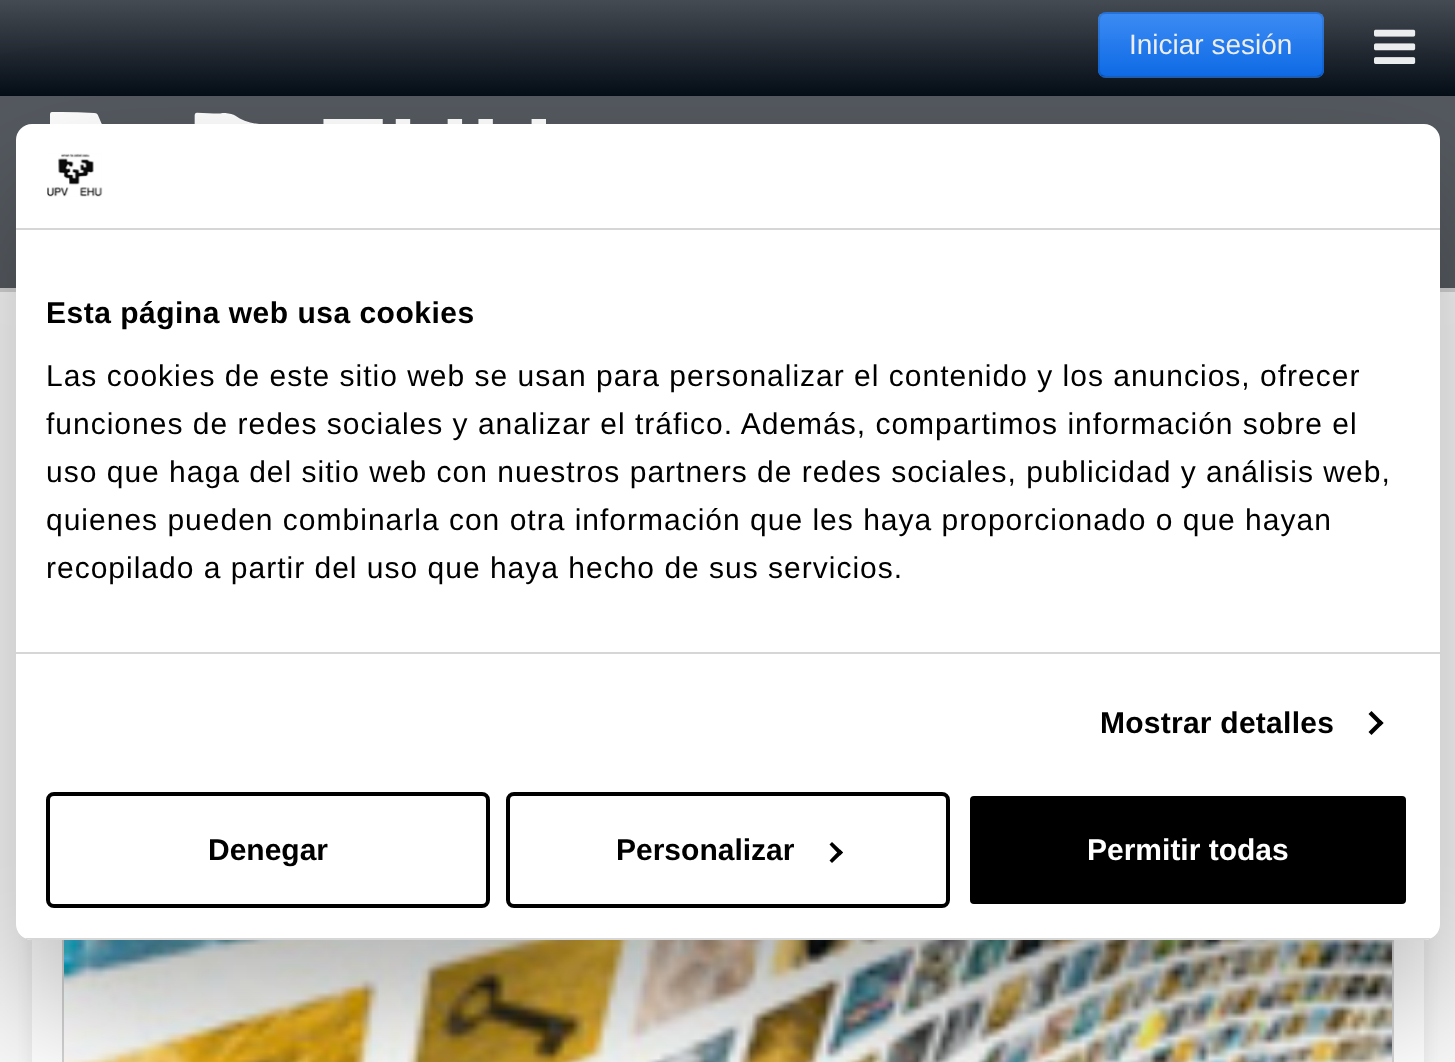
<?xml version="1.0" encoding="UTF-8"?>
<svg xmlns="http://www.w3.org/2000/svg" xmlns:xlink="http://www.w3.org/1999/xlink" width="1455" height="1062">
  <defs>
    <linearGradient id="g1" gradientUnits="userSpaceOnUse" x1="728" y1="96" x2="728" y2="0"><stop offset="0" stop-color="#050d16" /><stop offset="1" stop-color="#454b53" /></linearGradient>
    <clipPath id="clip1"><rect x="1098" y="12" width="226" height="66" rx="8" /></clipPath>
    <linearGradient id="g2" gradientUnits="userSpaceOnUse" x1="1211" y1="14" x2="1211" y2="76"><stop offset="0" stop-color="#3c8bf3" /><stop offset="1" stop-color="#0f6ce7" /></linearGradient>
    <clipPath id="clip2"><rect x="16" y="124" width="1424" height="816" rx="16" /></clipPath>
  </defs>
  <rect width="100%" height="100%" fill="#f9f9f9" />
  <rect width="1455" height="96" fill="url(#g1)" />
  <rect x="1098" y="12" width="226" height="66" rx="8" fill="#2a7eee" />
  <g clip-path="url(#clip1)">
    <rect x="1098" y="14" width="226" height="62" fill="url(#g2)" />
  </g>
  <path d="M 1321 75 c -1.5 1.5 -3 2 -5 2 h -210 c -2 0 -3.5 -0.5 -5 -2" fill="none" stroke="#000000" stroke-opacity="0.25" stroke-width="2" />
  <path d="M 1101 75 c -1.5 -1.5 -2 -3 -2 -5 v -50 c 0 -2 0.5 -3.5 2 -5 c 1.5 -1.5 3 -2 5 -2 h 210 c 2 0 3.5 0.5 5 2 c 1.5 1.5 2 3 2 5 v 50 c 0 2 -0.5 3.5 -2 5" fill="none" stroke="#000000" stroke-opacity="0.1" stroke-width="2" />
  <image x="1374" y="29" width="42" height="35" xlink:href="image1.png" />
  <rect y="96" width="1455" height="192" fill="#555a60" />
  <image x="50" y="112" width="496" height="12" xlink:href="image2.png" />
  <rect y="288" width="1455" height="4" fill="#d4d4d4" />
  <rect x="26" y="526" width="1404" height="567" rx="16" fill="#efefef" filter="blur(5px)" />
  <rect x="32" y="940" width="1392" height="122" fill="#ffffff" />
  <rect x="63" y="689" width="1330" height="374" fill="none" stroke="#d4d4d4" stroke-width="2" />
  <image x="64" y="940" width="1328" height="122" xlink:href="image3.png" />
  <rect x="16" y="188" width="1424" height="816" rx="16" fill="#000000" fill-opacity="0.3" filter="blur(68px)" />
  <rect x="16" y="124" width="1424" height="816" rx="16" fill="#ffffff" />
  <rect x="16" y="228" width="1424" height="2" fill="#d6d6d6" />
  <image x="47" y="153" width="56" height="44" xlink:href="image4.png" />
  <rect x="16" y="652" width="1424" height="2" fill="#d6d6d6" />
  <path d="M 1371.5 711 l 12 12 l -3 3 l -12 -12 z" fill="#000000" />
  <path d="M 1380.5 720 l 3 3 l -12 12 l -3 -3 z" fill="#000000" />
  <g clip-path="url(#clip2)">
    <rect x="16" y="938" width="1424" height="2" fill="#d6d6d6" />
  </g>
  <rect x="48" y="794" width="440" height="112" rx="6" fill="none" stroke="#000000" stroke-width="4" />
  <rect x="508" y="794" width="440" height="112" rx="6" fill="none" stroke="#000000" stroke-width="4" />
  <path d="M 832 842 l 11 10.5 l -3 3 l -10.5 -11 z" fill="#000000" />
  <path d="M 840 849.5 l 3 3 l -11 10.5 l -2.5 -2.5 z" fill="#000000" />
  <rect x="968" y="794" width="440" height="112" rx="6" fill="#000000" stroke="#ffffff" stroke-width="4" />
  <text x="1129" y="54" style="font-family: Liberation Sans; font-size: 28px; fill: #ecedee">Iniciar sesión</text>
  <text x="46" y="323" style="font-family: Liberation Sans; font-size: 30px; font-weight: bold; letter-spacing: 0.5px; fill: #000000">Esta página web usa cookies</text>
  <text x="46" y="386" style="font-family: Liberation Sans; font-size: 30px; letter-spacing: 1px; fill: #000000">Las cookies de este sitio web se usan para personalizar el contenido y los anuncios, ofrecer</text>
  <text x="46" y="434" style="font-family: Liberation Sans; font-size: 30px; letter-spacing: 1px; fill: #000000">funciones de redes sociales y analizar el tráfico. Además, compartimos información sobre el</text>
  <text x="46" y="482" style="font-family: Liberation Sans; font-size: 30px; letter-spacing: 1px; fill: #000000">uso que haga del sitio web con nuestros partners de redes sociales, publicidad y análisis web,</text>
  <text x="46" y="530" style="font-family: Liberation Sans; font-size: 30px; letter-spacing: 1px; fill: #000000">quienes pueden combinarla con otra información que les haya proporcionado o que hayan</text>
  <text x="46" y="578" style="font-family: Liberation Sans; font-size: 30px; letter-spacing: 1px; fill: #000000">recopilado a partir del uso que haya hecho de sus servicios.</text>
  <text x="1100" y="733" style="font-family: Liberation Sans; font-size: 30px; font-weight: bold; letter-spacing: 0.25px; fill: #000000">Mostrar detalles</text>
  <text x="208" y="860" style="font-family: Liberation Sans; font-size: 30px; font-weight: bold; fill: #000000">Denegar</text>
  <text x="616" y="860" style="font-family: Liberation Sans; font-size: 30px; font-weight: bold; fill: #000000">Personalizar</text>
  <text x="1087" y="860" style="font-family: Liberation Sans; font-size: 30px; font-weight: bold; fill: #ffffff">Permitir todas</text>
</svg>
